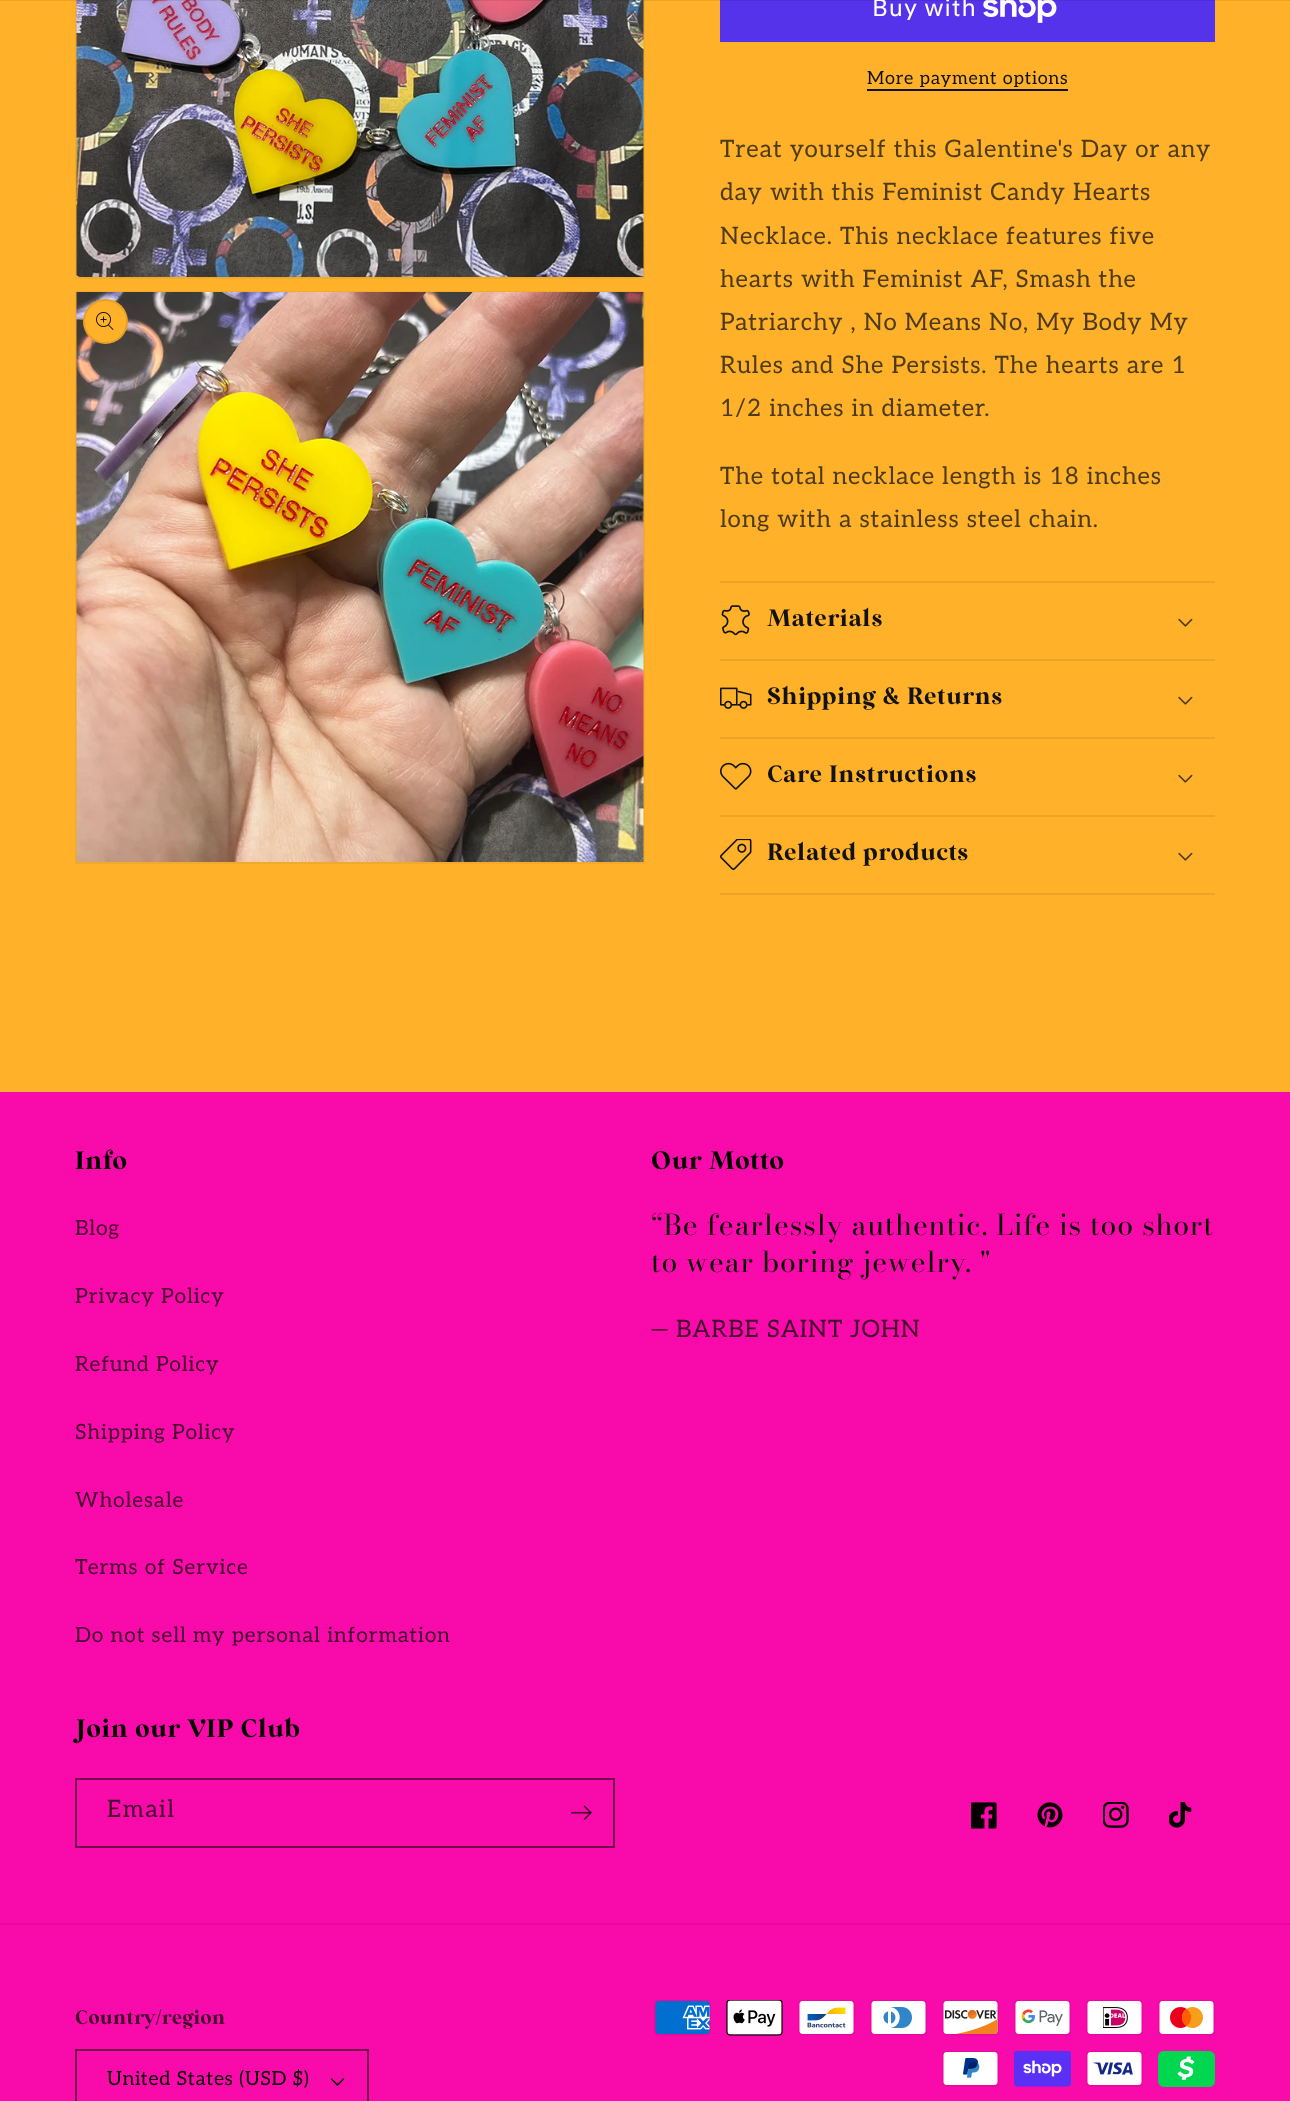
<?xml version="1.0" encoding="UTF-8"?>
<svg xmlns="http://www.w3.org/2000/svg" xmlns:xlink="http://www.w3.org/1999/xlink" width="1290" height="2101">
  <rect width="100%" height="100%" fill="#ffb12a" />
  <rect x="76" y="-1" width="568" height="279" fill="none" stroke="#f3a929" stroke-width="2" />
  <image x="76" y="0" width="568" height="277" xlink:href="image1.png" />
  <rect x="720" width="495" height="42" fill="#5433eb" />
  <image x="983" y="0" width="74" height="23" xlink:href="image4.png" />
  <rect width="1290" height="1" fill="#060000" fill-opacity="0.08" />
  <rect x="76" y="292" width="568" height="571" fill="none" stroke="#f3a929" stroke-width="2" />
  <image x="76" y="292" width="568" height="570" xlink:href="image2.png" />
  <circle cx="105.5" cy="321.5" r="22.5" fill="#ffb12a" />
  <circle cx="105.5" cy="321.5" r="21.5" fill="none" stroke="#121212" stroke-opacity="0.1" stroke-width="2" />
  <image x="96" y="312" width="18" height="18" xlink:href="image3.png" />
  <rect x="867" y="89" width="201" height="2" fill="#121212" />
  <rect x="720" y="581" width="495" height="2" fill="#eca428" />
  <rect x="720" y="659" width="495" height="2" fill="#eca428" />
  <image x="721" y="605" width="29" height="31" xlink:href="image5.png" />
  <image x="1178" y="618" width="15" height="9" xlink:href="image6.png" />
  <rect x="720" y="737" width="495" height="2" fill="#eca428" />
  <image x="720" y="687" width="32" height="22" xlink:href="image7.png" />
  <image x="1178" y="696" width="15" height="9" xlink:href="image6.png" />
  <rect x="720" y="815" width="495" height="2" fill="#eca428" />
  <image x="720" y="762" width="32" height="28" xlink:href="image8.png" />
  <image x="1178" y="774" width="15" height="9" xlink:href="image6.png" />
  <rect x="720" y="893" width="495" height="2" fill="#eca428" />
  <image x="720" y="839" width="32" height="31" xlink:href="image9.png" />
  <image x="1178" y="852" width="15" height="9" xlink:href="image6.png" />
  <rect y="1092" width="1290" height="1009" fill="#f90bab" />
  <rect x="76" y="1779" width="538" height="68" fill="none" stroke="#73054d" stroke-width="2" />
  <image x="570" y="1805" width="22" height="15" xlink:href="image10.png" />
  <image x="971" y="1802" width="26" height="27" xlink:href="image11.png" />
  <image x="1037" y="1802" width="26" height="26" xlink:href="image12.png" />
  <image x="1103" y="1802" width="26" height="26" xlink:href="image13.png" />
  <image x="1169" y="1802" width="23" height="26" xlink:href="image14.png" />
  <rect y="1923" width="1290" height="2" fill="#e60a9d" />
  <image x="330" y="2078" width="15" height="8" xlink:href="image15.png" />
  <rect x="76" y="2050" width="292" height="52" fill="none" stroke="#73054d" stroke-width="2" />
  <image x="654" y="2000" width="57" height="36" xlink:href="image16.png" />
  <image x="726" y="2000" width="57" height="36" xlink:href="image17.png" />
  <image x="798" y="2000" width="57" height="36" xlink:href="image18.png" />
  <image x="870" y="2000" width="57" height="36" xlink:href="image19.png" />
  <image x="942" y="2000" width="57" height="36" xlink:href="image20.png" />
  <image x="1014" y="2000" width="57" height="36" xlink:href="image21.png" />
  <image x="1086" y="2000" width="57" height="36" xlink:href="image22.png" />
  <image x="1158" y="2000" width="57" height="36" xlink:href="image23.png" />
  <image x="942" y="2051" width="57" height="36" xlink:href="image24.png" />
  <image x="1014" y="2051" width="57" height="36" xlink:href="image25.png" />
  <image x="1086" y="2051" width="57" height="36" xlink:href="image26.png" />
  <image x="1158" y="2051" width="57" height="36" xlink:href="image27.png" />
  <text x="872" y="16" style="font-family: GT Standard; font-size: 24px; letter-spacing: 0.9px; fill: #ffffff">Buy with</text>
  <text x="867" y="84" style="font-family: Aleo; font-size: 18px; letter-spacing: 0.75px; fill: #121212">More payment options</text>
  <text x="720" y="157" style="font-family: Aleo; font-size: 24px; letter-spacing: 0.9px; fill: #4d3a18">Treat yourself this Galentine's Day or any</text>
  <text x="720" y="200" style="font-family: Aleo; font-size: 24px; letter-spacing: 0.9px; fill: #4d3a18">day with this Feminist Candy Hearts</text>
  <text x="720" y="244" style="font-family: Aleo; font-size: 24px; letter-spacing: 0.9px; fill: #4d3a18">Necklace. This necklace features five</text>
  <text x="720" y="287" style="font-family: Aleo; font-size: 24px; letter-spacing: 0.9px; fill: #4d3a18">hearts with Feminist AF, Smash the</text>
  <text x="720" y="330" style="font-family: Aleo; font-size: 24px; letter-spacing: 0.9px; fill: #4d3a18">Patriarchy , No Means No, My Body My</text>
  <text x="720" y="373" style="font-family: Aleo; font-size: 24px; letter-spacing: 0.9px; fill: #4d3a18">Rules and She Persists. The hearts are 1</text>
  <text x="720" y="416" style="font-family: Aleo; font-size: 24px; letter-spacing: 0.9px; fill: #4d3a18">1/2 inches in diameter.</text>
  <text x="720" y="484" style="font-family: Aleo; font-size: 24px; letter-spacing: 0.9px; fill: #4d3a18">The total necklace length is 18 inches</text>
  <text x="720" y="527" style="font-family: Aleo; font-size: 24px; letter-spacing: 0.9px; fill: #4d3a18">long with a stainless steel chain.</text>
  <text x="767" y="626" style="font-family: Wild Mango; font-size: 23.6px; letter-spacing: 0.95px; fill: #121212">Materials</text>
  <text x="767" y="704" style="font-family: Wild Mango; font-size: 23.6px; letter-spacing: 0.95px; fill: #121212">Shipping &amp; Returns</text>
  <text x="767" y="782" style="font-family: Wild Mango; font-size: 23.6px; letter-spacing: 0.95px; fill: #121212">Care Instructions</text>
  <text x="767" y="860" style="font-family: Wild Mango; font-size: 23.6px; letter-spacing: 0.95px; fill: #121212">Related products</text>
  <text x="75" y="1169" style="font-family: Wild Mango; font-size: 25.25px; letter-spacing: 0.95px; fill: #060000">Info</text>
  <text x="75" y="1235" style="font-family: Aleo; font-size: 21px; letter-spacing: 0.9px; fill: #43032b">Blog</text>
  <text x="75" y="1303" style="font-family: Aleo; font-size: 21px; letter-spacing: 0.9px; fill: #43032b">Privacy Policy</text>
  <text x="75" y="1371" style="font-family: Aleo; font-size: 21px; letter-spacing: 0.9px; fill: #43032b">Refund Policy</text>
  <text x="75" y="1439" style="font-family: Aleo; font-size: 21px; letter-spacing: 0.9px; fill: #43032b">Shipping Policy</text>
  <text x="75" y="1507" style="font-family: Aleo; font-size: 21px; letter-spacing: 0.9px; fill: #43032b">Wholesale</text>
  <text x="75" y="1574" style="font-family: Aleo; font-size: 21px; letter-spacing: 0.9px; fill: #43032b">Terms of Service</text>
  <text x="75" y="1642" style="font-family: Aleo; font-size: 21px; letter-spacing: 0.9px; fill: #43032b">Do not sell my personal information</text>
  <text x="651" y="1169" style="font-family: Wild Mango; font-size: 25.25px; letter-spacing: 0.95px; fill: #060000">Our Motto</text>
  <text x="651" y="1235" style="font-family: Bodoni Moda; font-size: 28.4px; letter-spacing: 0.95px; fill: #060000">“Be fearlessly authentic. Life is too short</text>
  <text x="651" y="1272" style="font-family: Bodoni Moda; font-size: 28.4px; letter-spacing: 0.95px; fill: #060000">to wear boring jewelry. "</text>
  <text x="651" y="1337" style="font-family: Aleo; font-size: 24px; letter-spacing: 0.9px; fill: #43032b">— BARBE SAINT JOHN</text>
  <text x="75" y="1737" style="font-family: Wild Mango; font-size: 25.25px; letter-spacing: 0.95px; fill: #060000">Join our VIP Club</text>
  <text x="107" y="1817" style="font-family: Aleo; font-size: 24px; letter-spacing: 1.5px; fill: #43032b">Email</text>
  <text x="75" y="2024" style="font-family: Wild Mango; font-size: 19.5px; letter-spacing: 0.6px; fill: #43032b">Country/region</text>
  <text x="107" y="2085" style="font-family: Aleo; font-size: 19.5px; letter-spacing: 0.6px; fill: #060000">United States (USD $)</text>
</svg>
